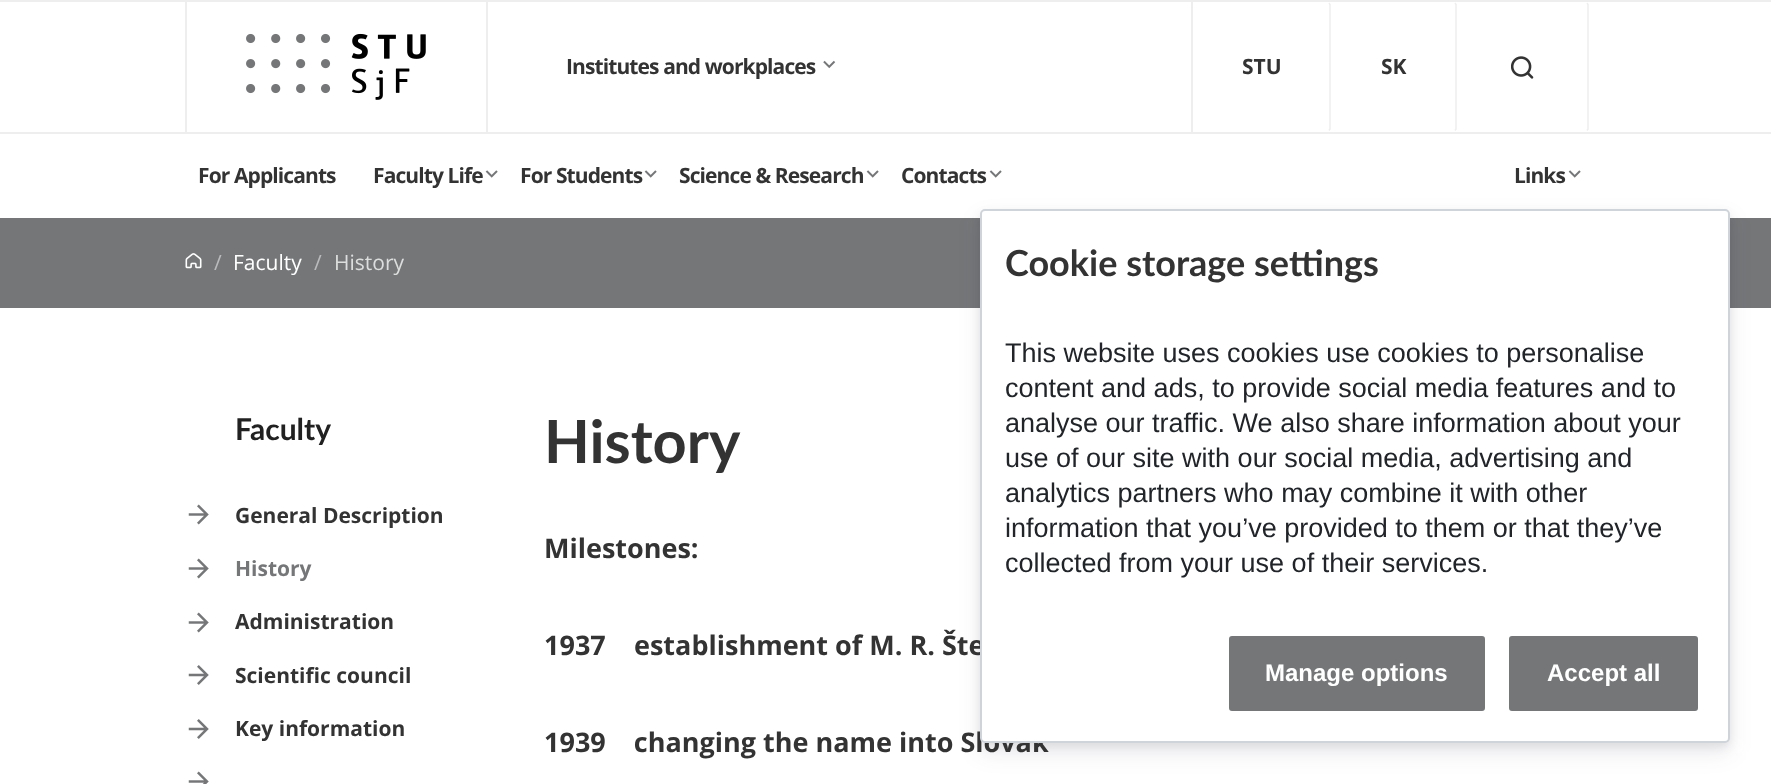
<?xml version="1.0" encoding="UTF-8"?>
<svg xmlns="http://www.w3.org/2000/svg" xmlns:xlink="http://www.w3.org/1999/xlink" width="1771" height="784">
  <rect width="100%" height="100%" fill="#eeeeee" />
  <rect y="2" width="1771" height="216" fill="#ffffff" />
  <rect y="132" width="1771" height="2" fill="#eeeeee" />
  <rect x="486" y="2" width="2" height="130" fill="#eeeeee" />
  <rect x="185" y="2" width="2" height="130" fill="#eeeeee" />
  <image x="246" y="33" width="180" height="67" xlink:href="image1.png" />
  <rect x="1191" y="2" width="2" height="130" fill="#eeeeee" />
  <image x="823" y="60" width="13" height="9" xlink:href="image2.png" />
  <path d="M 1329 3 l 1 1.5 v 124.5 l -1 1.5" fill="none" stroke="#eeeeee" stroke-width="1.5" />
  <path d="M 1455 3 l 1 1.5 v 124.5 l -1 1.5" fill="none" stroke="#eeeeee" stroke-width="1.5" />
  <path d="M 1587 3 l 1 1.5 v 124.5 l -1 1.5" fill="none" stroke="#eeeeee" stroke-width="1.5" />
  <image x="1511" y="56" width="23" height="23" xlink:href="image3.png" />
  <image x="485" y="170" width="13" height="8" xlink:href="image4.png" />
  <image x="644" y="170" width="13" height="8" xlink:href="image4.png" />
  <image x="866" y="170" width="13" height="8" xlink:href="image4.png" />
  <image x="989" y="170" width="13" height="8" xlink:href="image4.png" />
  <image x="1568" y="170" width="13" height="8" xlink:href="image4.png" />
  <rect y="218" width="1771" height="90" fill="#747678" />
  <image x="185" y="253" width="17" height="16" xlink:href="image5.png" />
  <rect y="308" width="1771" height="476" fill="#ffffff" />
  <rect x="980" y="213" width="750" height="534" rx="5" fill="#000000" fill-opacity="0.07" filter="blur(4.5px)" />
  <rect x="980" y="219" width="750" height="534" rx="5" fill="#32325d" fill-opacity="0.1" filter="blur(10.5px)" />
  <image x="188" y="504" width="21" height="21" xlink:href="image6.png" />
  <image x="188" y="558" width="21" height="21" xlink:href="image6.png" />
  <image x="188" y="612" width="21" height="21" xlink:href="image6.png" />
  <image x="188" y="665" width="21" height="20" xlink:href="image7.png" />
  <image x="188" y="719" width="21" height="20" xlink:href="image7.png" />
  <image x="188" y="771" width="21" height="13" xlink:href="image8.png" />
  <text x="566" y="74" style="font-family: Open Sans; font-size: 21px; font-weight: bold; letter-spacing: -0.9px; fill: #333333">Institutes and workplaces</text>
  <text x="1242" y="74" style="font-family: Open Sans; font-size: 21px; font-weight: bold; fill: #333333">STU</text>
  <text x="1381" y="74" style="font-family: Open Sans; font-size: 21px; font-weight: bold; fill: #333333">SK</text>
  <text x="198" y="183" style="font-family: Open Sans; font-size: 21px; font-weight: bold; letter-spacing: -0.9px; fill: #333333">For Applicants</text>
  <text x="373" y="183" style="font-family: Open Sans; font-size: 21px; font-weight: bold; letter-spacing: -0.9px; fill: #333333">Faculty Life</text>
  <text x="520" y="183" style="font-family: Open Sans; font-size: 21px; font-weight: bold; letter-spacing: -0.9px; fill: #333333">For Students</text>
  <text x="679" y="183" style="font-family: Open Sans; font-size: 21px; font-weight: bold; letter-spacing: -0.9px; fill: #333333">Science &amp; Research</text>
  <text x="901" y="183" style="font-family: Open Sans; font-size: 21px; font-weight: bold; letter-spacing: -0.9px; fill: #333333">Contacts</text>
  <text x="1514" y="183" style="font-family: Open Sans; font-size: 21px; font-weight: bold; letter-spacing: -0.9px; fill: #333333">Links</text>
  <text x="214" y="270" style="font-family: Open Sans; font-size: 21px; fill: #babbbc">/</text>
  <text x="233" y="270" style="font-family: Open Sans; font-size: 21px; fill: #ffffff">Faculty</text>
  <text x="314" y="270" style="font-family: Open Sans; font-size: 21px; fill: #babbbc">/</text>
  <text x="334" y="270" style="font-family: Open Sans; font-size: 21px; fill: #dcdddd">History</text>
  <text x="235" y="440" style="font-family: Lato; font-size: 30px; font-weight: bold; fill: #212121">Faculty</text>
  <text x="235" y="523" style="font-family: Open Sans; font-size: 21px; font-weight: bold; fill: #333333">General Description</text>
  <text x="235" y="576" style="font-family: Open Sans; font-size: 21px; font-weight: bold; fill: #747678">History</text>
  <text x="235" y="629" style="font-family: Open Sans; font-size: 21px; font-weight: bold; fill: #333333">Administration</text>
  <text x="235" y="683" style="font-family: Open Sans; font-size: 21px; font-weight: bold; fill: #333333">Scientific council</text>
  <text x="235" y="736" style="font-family: Open Sans; font-size: 21px; font-weight: bold; fill: #333333">Key information</text>
  <text x="544" y="463" style="font-family: Lato; font-size: 59.5px; font-weight: bold; fill: #333333">History</text>
  <text x="544" y="558" style="font-family: Open Sans; font-size: 27px; font-weight: bold; fill: #333333">Milestones:</text>
  <text x="544" y="655" style="font-family: Open Sans; font-size: 27px; font-weight: bold; fill: #333333">1937</text>
  <text x="634" y="655" style="font-family: Open Sans; font-size: 27px; font-weight: bold; fill: #333333">establishment of M. R. Šte</text>
  <text x="544" y="752" style="font-family: Open Sans; font-size: 27px; font-weight: bold; fill: #333333" xml:space="preserve">1939    changing the name into Slovak</text>
  <rect x="981" y="210" width="748" height="532" rx="4" fill="#ffffff" stroke="#ced4da" stroke-width="2" />
  <text x="1005" y="572" style="font-family: Liberation Sans; font-size: 27px; fill: #212529">collected from your use of their services.</text>
  <text x="1005" y="537" style="font-family: Liberation Sans; font-size: 27px; fill: #212529">information that you’ve provided to them or that they’ve</text>
  <text x="1005" y="502" style="font-family: Liberation Sans; font-size: 27px; fill: #212529">analytics partners who may combine it with other</text>
  <text x="1005" y="467" style="font-family: Liberation Sans; font-size: 27px; fill: #212529">use of our site with our social media, advertising and</text>
  <text x="1005" y="432" style="font-family: Liberation Sans; font-size: 27px; fill: #212529">analyse our traffic. We also share information about your</text>
  <text x="1005" y="397" style="font-family: Liberation Sans; font-size: 27px; fill: #212529">content and ads, to provide social media features and to</text>
  <text x="1005" y="362" style="font-family: Liberation Sans; font-size: 27px; fill: #212529">This website uses cookies use cookies to personalise</text>
  <text x="1005" y="276" style="font-family: Lato; font-size: 36px; font-weight: bold; fill: #333333">Cookie storage settings</text>
  <rect x="1510" y="637" width="187" height="73" rx="2" fill="#747678" stroke="#747678" stroke-width="2" />
  <text x="1547" y="681" style="font-family: Liberation Sans; font-size: 24px; font-weight: bold; fill: #ffffff">Accept all</text>
  <rect x="1230" y="637" width="254" height="73" rx="2" fill="#747678" stroke="#747678" stroke-width="2" />
  <text x="1265" y="681" style="font-family: Liberation Sans; font-size: 24px; font-weight: bold; fill: #ffffff">Manage options</text>
</svg>
